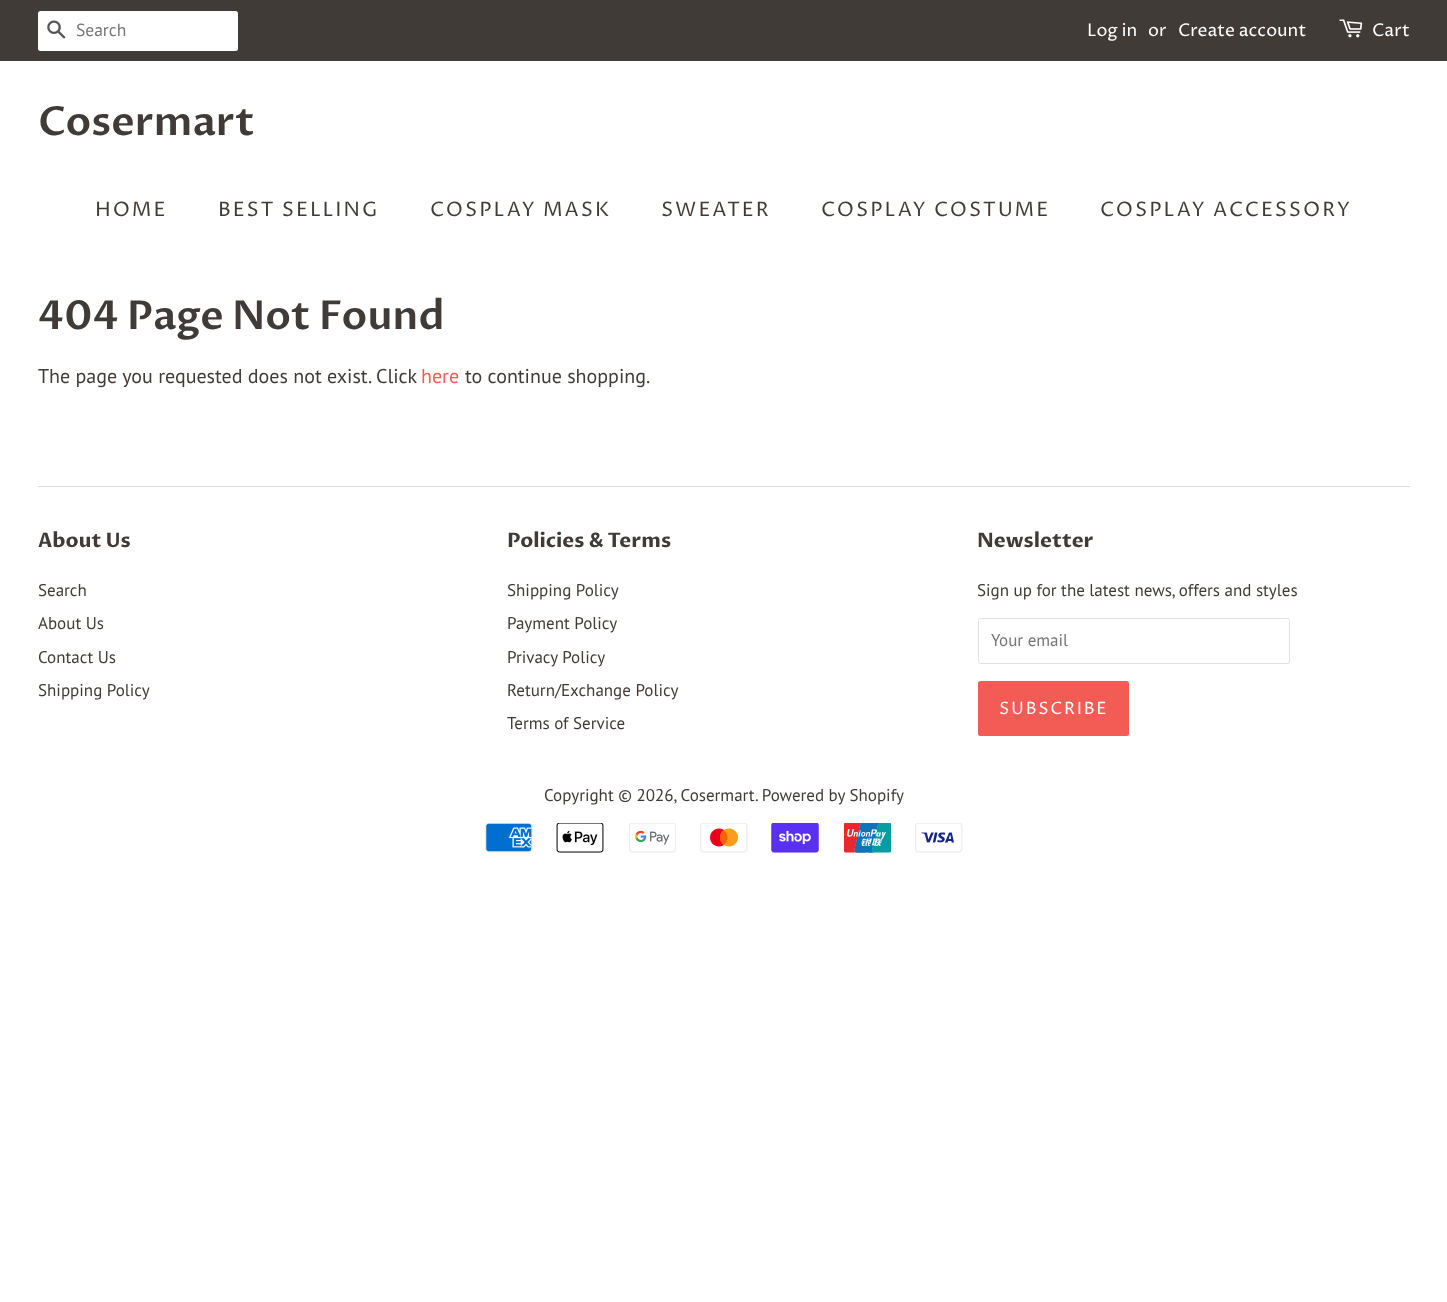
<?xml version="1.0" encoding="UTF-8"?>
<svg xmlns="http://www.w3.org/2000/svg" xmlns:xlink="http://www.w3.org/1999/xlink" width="1447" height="1302">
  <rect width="100%" height="100%" fill="#ffffff" />
  <rect width="1447" height="61" fill="#403b37" />
  <rect x="38" y="11" width="200" height="40" rx="2.5" fill="#ffffff" />
  <image x="47" y="20" width="19" height="19" xlink:href="image1.png" />
  <image x="1339" y="19" width="24" height="19" xlink:href="image2.png" />
  <rect x="38" y="486" width="1372" height="1" fill="#dddddd" />
  <rect x="978.5" y="618.5" width="311" height="45" rx="2" fill="none" stroke="#e2e2e1" />
  <rect x="978" y="681" width="151" height="55" rx="2.5" fill="#f25c54" />
  <image x="485" y="823" width="48" height="30" xlink:href="image3.png" />
  <image x="556" y="823" width="48" height="30" xlink:href="image4.png" />
  <image x="629" y="823" width="47" height="30" xlink:href="image5.png" />
  <image x="700" y="823" width="48" height="30" xlink:href="image6.png" />
  <image x="771" y="823" width="48" height="30" xlink:href="image7.png" />
  <image x="844" y="823" width="47" height="30" xlink:href="image8.png" />
  <image x="915" y="823" width="48" height="30" xlink:href="image9.png" />
  <text x="76" y="36" style="font-family: PT Sans; font-size: 17.5px; fill: #757575">Search</text>
  <text x="1087" y="36" style="font-family: Proza Libre; font-size: 17.5px; fill: #ffffff">Log in</text>
  <text x="1148" y="36" style="font-family: Proza Libre; font-size: 17.5px; fill: #ffffff">or</text>
  <text x="1178" y="36" style="font-family: Proza Libre; font-size: 17.5px; fill: #ffffff">Create account</text>
  <text x="1372" y="36" style="font-family: Proza Libre; font-size: 17.5px; fill: #ffffff">Cart</text>
  <text x="38" y="135" style="font-family: Proza Libre; font-size: 40px; font-weight: 600; fill: #403b37">Cosermart</text>
  <text x="95" y="216" style="font-family: Proza Libre; font-size: 20px; letter-spacing: 2px; fill: #403b37">HOME</text>
  <text x="218" y="216" style="font-family: Proza Libre; font-size: 20px; letter-spacing: 2px; fill: #403b37">BEST SELLING</text>
  <text x="430" y="216" style="font-family: Proza Libre; font-size: 20px; letter-spacing: 2px; fill: #403b37">COSPLAY MASK</text>
  <text x="661" y="216" style="font-family: Proza Libre; font-size: 20px; letter-spacing: 2px; fill: #403b37">SWEATER</text>
  <text x="821" y="216" style="font-family: Proza Libre; font-size: 20px; letter-spacing: 2px; fill: #403b37">COSPLAY COSTUME</text>
  <text x="1100" y="216" style="font-family: Proza Libre; font-size: 20px; letter-spacing: 2px; fill: #403b37">COSPLAY ACCESSORY</text>
  <text x="38" y="329" style="font-family: Proza Libre; font-size: 40px; font-weight: 600; fill: #403b37">404 Page Not Found</text>
  <text x="38" y="383" style="font-family: PT Sans; font-size: 20px; fill: #403b37">The page you requested does not exist. Click</text>
  <text x="421" y="383" style="font-family: PT Sans; font-size: 20px; fill: #f25c54">here</text>
  <text x="465" y="383" style="font-family: PT Sans; font-size: 20px; fill: #403b37">to continue shopping.</text>
  <text x="38" y="547" style="font-family: Proza Libre; font-size: 20px; font-weight: bold; fill: #403b37">About Us</text>
  <text x="38" y="596" style="font-family: PT Sans; font-size: 17px; fill: #403b37">Search</text>
  <text x="38" y="629" style="font-family: PT Sans; font-size: 17px; fill: #403b37">About Us</text>
  <text x="38" y="663" style="font-family: PT Sans; font-size: 17px; fill: #403b37">Contact Us</text>
  <text x="38" y="696" style="font-family: PT Sans; font-size: 17px; fill: #403b37">Shipping Policy</text>
  <text x="507" y="547" style="font-family: Proza Libre; font-size: 20px; font-weight: bold; fill: #403b37">Policies &amp; Terms</text>
  <text x="507" y="596" style="font-family: PT Sans; font-size: 17px; fill: #403b37">Shipping Policy</text>
  <text x="507" y="629" style="font-family: PT Sans; font-size: 17px; fill: #403b37">Payment Policy</text>
  <text x="507" y="663" style="font-family: PT Sans; font-size: 17px; fill: #403b37">Privacy Policy</text>
  <text x="507" y="696" style="font-family: PT Sans; font-size: 17px; fill: #403b37">Return/Exchange Policy</text>
  <text x="507" y="729" style="font-family: PT Sans; font-size: 17px; fill: #403b37">Terms of Service</text>
  <text x="977" y="547" style="font-family: Proza Libre; font-size: 20px; font-weight: bold; fill: #403b37">Newsletter</text>
  <text x="977" y="596" style="font-family: PT Sans; font-size: 17px; fill: #403b37">Sign up for the latest news, offers and styles</text>
  <text x="991" y="646" style="font-family: PT Sans; font-size: 17px; fill: #757575">Your email</text>
  <text x="999" y="714" style="font-family: Proza Libre; font-size: 17px; letter-spacing: 1.75px; fill: #ffffff">SUBSCRIBE</text>
  <text x="544" y="801" style="font-family: PT Sans; font-size: 17px; fill: #403b37">Copyright © 2026, Cosermart. Powered by Shopify</text>
</svg>
